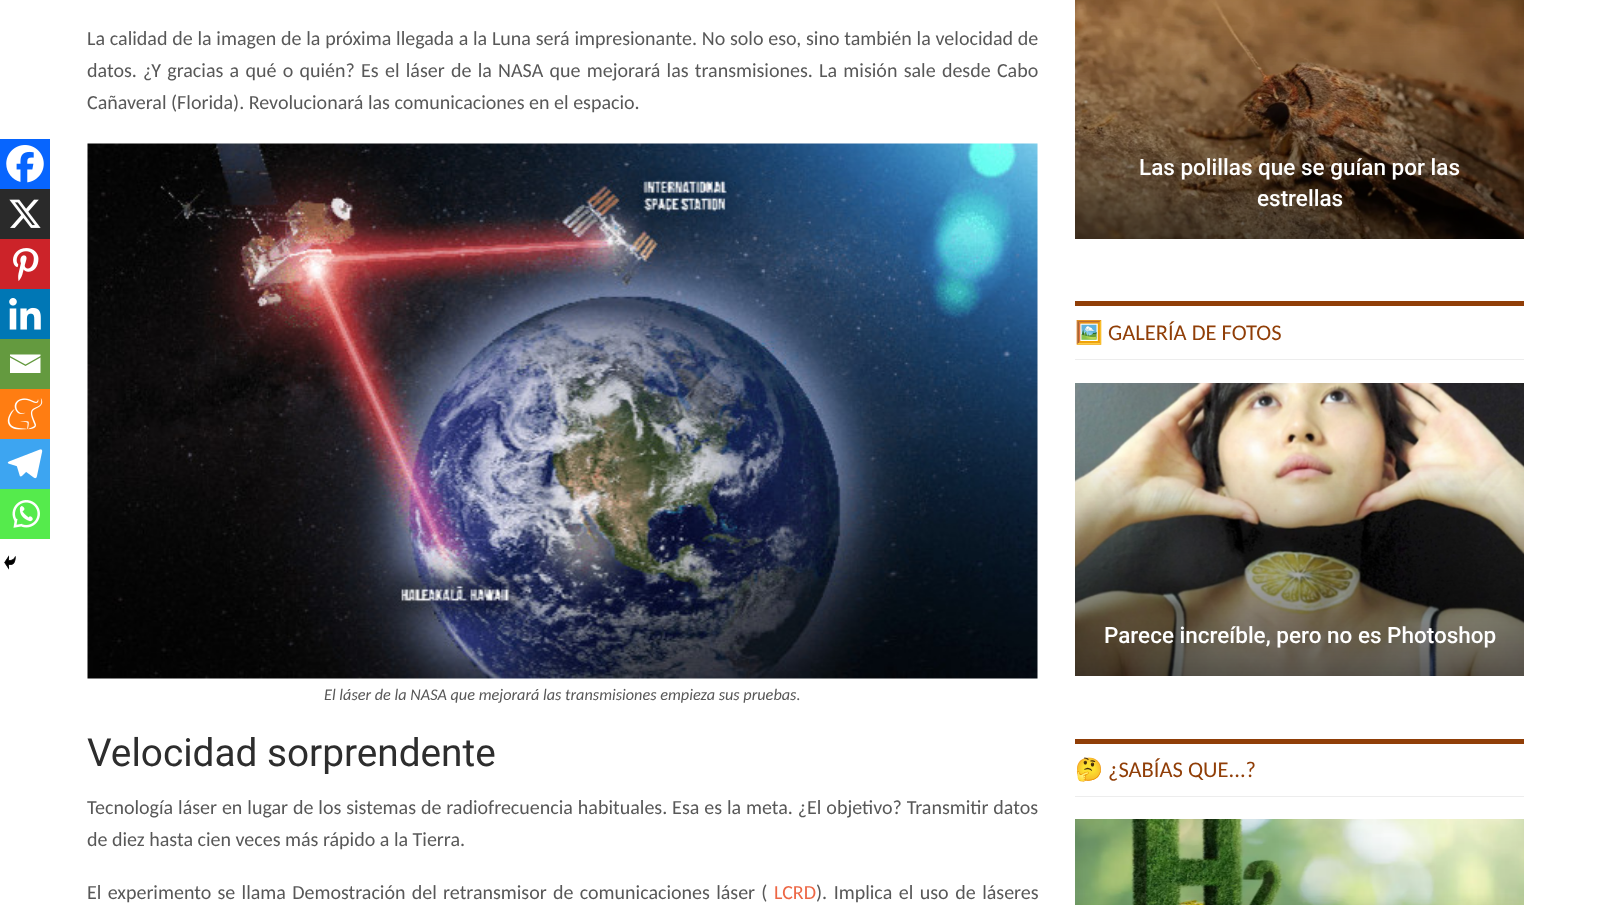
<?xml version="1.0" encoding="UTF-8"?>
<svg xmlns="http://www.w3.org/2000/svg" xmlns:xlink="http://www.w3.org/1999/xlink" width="1611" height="905">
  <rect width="100%" height="100%" fill="#ffffff" />
  <rect y="139" width="50" height="50" fill="#0765fe" />
  <image x="6" y="145" width="38" height="38" xlink:href="image1.png" />
  <rect y="189" width="50" height="50" fill="#2a2a2a" />
  <image x="9" y="199" width="32" height="29" xlink:href="image2.png" />
  <rect y="239" width="50" height="50" fill="#cc2329" />
  <image x="13" y="248" width="26" height="33" xlink:href="image3.png" />
  <rect y="289" width="50" height="50" fill="#0077b5" />
  <image x="9" y="298" width="32" height="32" xlink:href="image4.png" />
  <rect y="339" width="50" height="50" fill="#649a3f" />
  <path d="M 8.5 354.5 h 32 v 1.5 l -15 8.5 l -15.5 -8.5 v -1.5 m 0 3 l 15.5 8.5 l 15 -8.5 v 15.5 h -30.5 v -15.5" fill="#ffffff" />
  <rect y="389" width="50" height="50" fill="#ff7d12" />
  <image x="7" y="398" width="36" height="32" xlink:href="image5.png" />
  <rect y="439" width="50" height="50" fill="#3da5f1" />
  <image x="7" y="449" width="36" height="30" xlink:href="image6.png" />
  <rect y="489" width="50" height="50" fill="#55eb4c" />
  <image x="12" y="500" width="28" height="28" xlink:href="image7.png" />
  <image x="4" y="555" width="12" height="15" xlink:href="image8.png" />
  <image x="87" y="143" width="951" height="536" xlink:href="image9.png" />
  <image x="1075" y="0" width="449" height="239" xlink:href="image10.png" />
  <rect x="1075" y="301" width="449" height="5" fill="#903e07" />
  <rect x="1075" y="359" width="449" height="1" fill="#ededed" />
  <image x="1075" y="383" width="449" height="293" xlink:href="image11.png" />
  <rect x="1075" y="739" width="449" height="5" fill="#903e07" />
  <rect x="1075" y="796" width="449" height="1" fill="#ededed" />
  <image x="1075" y="819" width="449" height="86" xlink:href="image12.png" />
  <text x="87" y="45" word-spacing="0.25" style="font-family: Carlito; font-size: 20px; fill: #585858">La calidad de la imagen de la próxima llegada a la Luna será impresionante. No solo eso, sino también la velocidad de</text>
  <text x="87" y="77" word-spacing="1.75" style="font-family: Carlito; font-size: 20px; fill: #585858">datos. ¿Y gracias a qué o quién? Es el láser de la NASA que mejorará las transmisiones. La misión sale desde Cabo</text>
  <text x="87" y="109" style="font-family: Carlito; font-size: 20px; fill: #585858">Cañaveral (Florida). Revolucionará las comunicaciones en el espacio.</text>
  <text x="324" y="700" style="font-family: Carlito; font-size: 16.25px; font-style: italic; fill: #585858">El láser de la NASA que mejorará las transmisiones empieza sus pruebas.</text>
  <text x="87" y="766" style="font-family: Roboto; font-size: 38.75px; fill: #2d2d2d">Velocidad sorprendente</text>
  <text x="87" y="814" word-spacing="0.4" style="font-family: Carlito; font-size: 20px; fill: #585858">Tecnología láser en lugar de los sistemas de radiofrecuencia habituales. Esa es la meta. ¿El objetivo? Transmitir datos</text>
  <text x="87" y="846" style="font-family: Carlito; font-size: 20px; fill: #585858">de diez hasta cien veces más rápido a la Tierra.</text>
  <text x="87" y="899" word-spacing="1.75" style="font-family: Carlito; font-size: 20px; fill: #585858">El experimento se llama Demostración del retransmisor de comunicaciones láser (</text>
  <text x="774" y="899" style="font-family: Carlito; font-size: 20px; fill: #ed6745">LCRD</text>
  <text x="816" y="899" word-spacing="2" style="font-family: Carlito; font-size: 20px; fill: #585858">). Implica el uso de láseres</text>
  <text x="1139" y="175" style="font-family: Roboto; font-size: 22.5px; font-weight: 500; fill: #ffffff">Las polillas que se guían por las</text>
  <text x="1257" y="206" style="font-family: Roboto; font-size: 22.5px; font-weight: 500; fill: #ffffff">estrellas</text>
  <text x="1075" y="340" style="font-family: Noto Color Emoji; font-size: 22.5px; fill: #903e07">🖼️</text>
  <text x="1108" y="340" style="font-family: Carlito; font-size: 22.5px; fill: #903e07">GALERÍA DE FOTOS</text>
  <text x="1104" y="643" style="font-family: Roboto; font-size: 22.5px; font-weight: 500; fill: #ffffff">Parece increíble, pero no es Photoshop</text>
  <text x="1075" y="777" style="font-family: Noto Color Emoji; font-size: 22.5px; fill: #903e07">🤔</text>
  <text x="1108" y="777" style="font-family: Carlito; font-size: 22.5px; fill: #903e07">¿SABÍAS QUE...?</text>
</svg>
